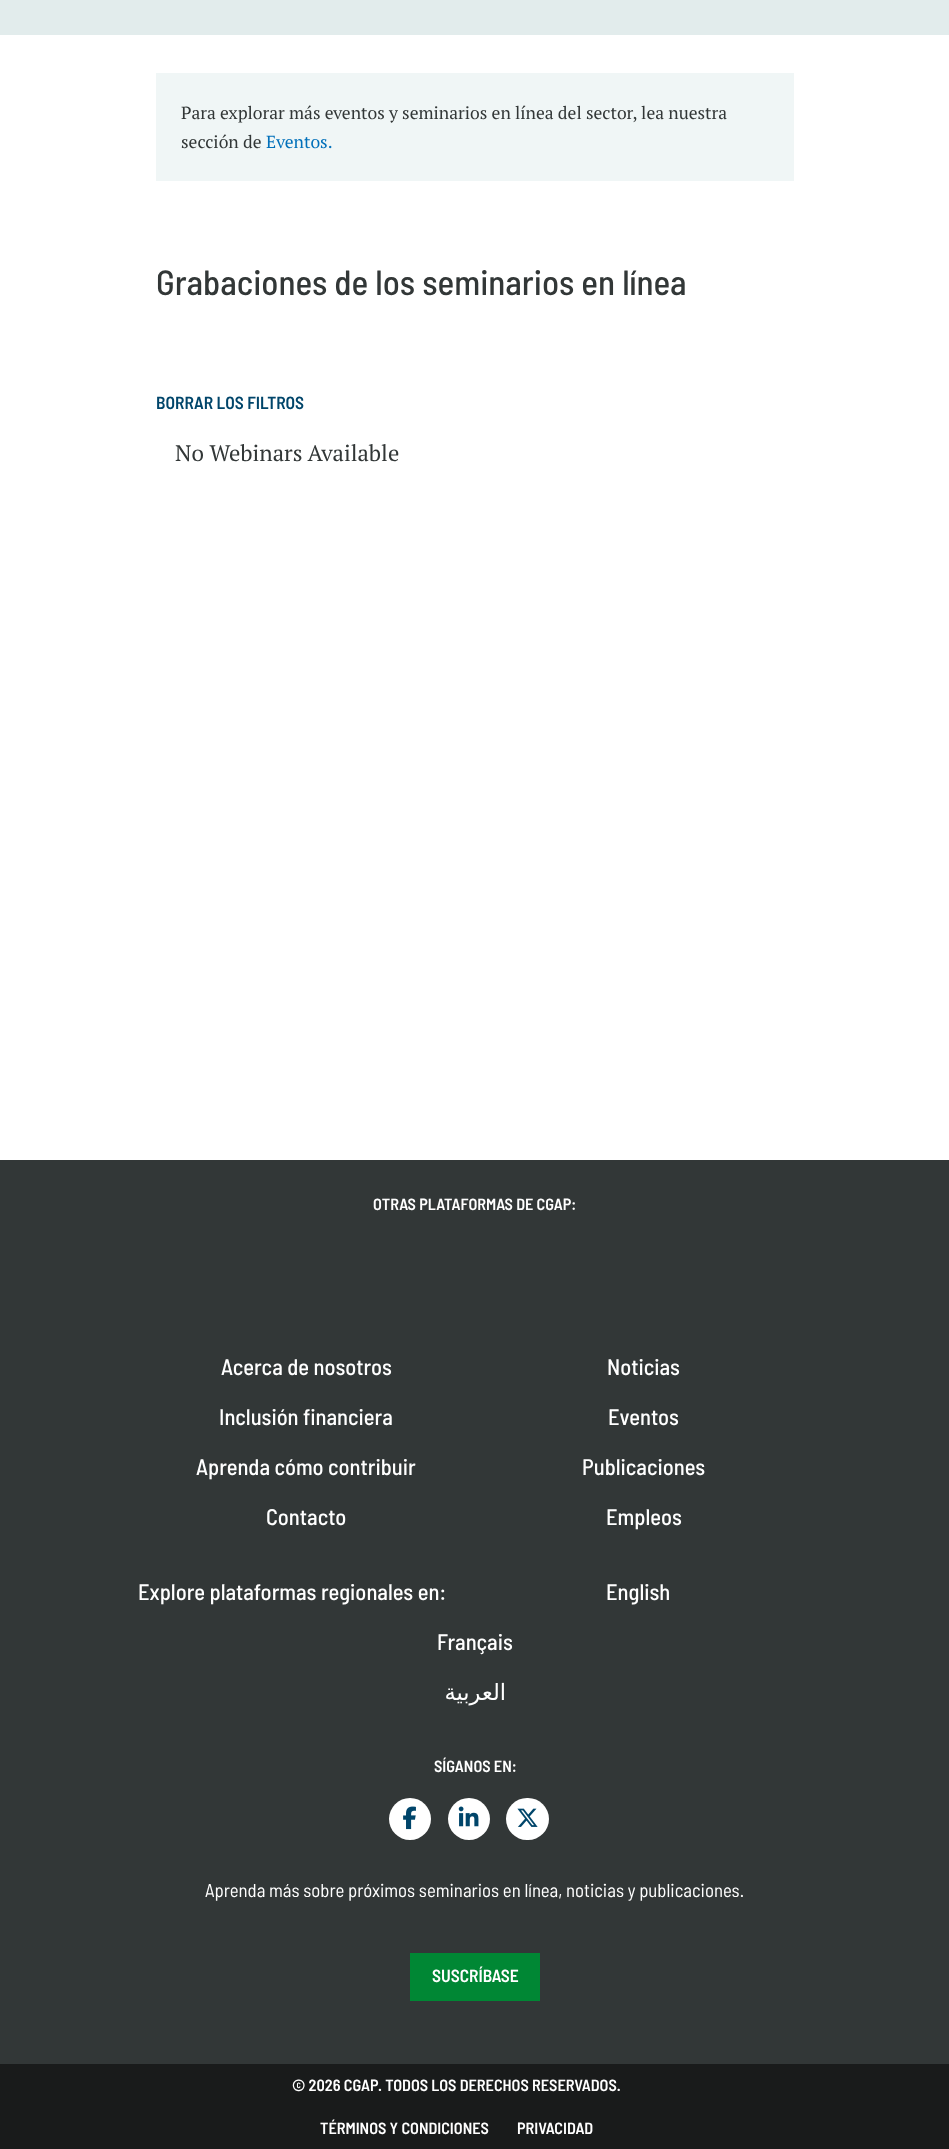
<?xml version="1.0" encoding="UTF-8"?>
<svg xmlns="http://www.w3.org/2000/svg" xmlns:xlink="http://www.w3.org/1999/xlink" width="949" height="2149">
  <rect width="100%" height="100%" fill="#ffffff" />
  <rect width="949" height="35" fill="#e2ecec" />
  <rect x="156" y="73" width="638" height="108" fill="#f0f6f6" />
  <rect y="1160" width="949" height="904" fill="#323737" />
  <circle cx="410" cy="1819" r="21" fill="#ffffff" />
  <image x="403" y="1806" width="13" height="24" xlink:href="image1.png" />
  <circle cx="469" cy="1819" r="21" fill="#ffffff" />
  <image x="458" y="1806" width="21" height="21" xlink:href="image2.png" />
  <rect x="506" y="1798" width="43" height="42" rx="21" fill="#ffffff" />
  <image x="517" y="1808" width="21" height="19" xlink:href="image3.png" />
  <rect x="410" y="1953" width="130" height="48" fill="#008734" />
  <rect y="2064" width="949" height="85" fill="#191b1b" />
  <text x="181" y="119" style="font-family: PT Serif; font-size: 17.5px; fill: #323737">Para explorar más eventos y seminarios en línea del sector, lea nuestra</text>
  <text x="181" y="148" style="font-family: PT Serif; font-size: 17.5px; fill: #323737">sección de</text>
  <text x="266" y="148" style="font-family: PT Serif; font-size: 17.5px; fill: #0170ba">Eventos.</text>
  <text x="156" y="295" style="font-family: Barlow Semi Condensed; font-size: 35px; font-weight: 500; fill: #323737">Grabaciones de los seminarios en línea</text>
  <text x="156" y="409" style="font-family: Barlow Semi Condensed; font-size: 17.5px; font-weight: 600; fill: #00456a">BORRAR LOS FILTROS</text>
  <text x="175" y="461" style="font-family: PT Serif; font-size: 22.5px; fill: #323737">No Webinars Available</text>
  <text x="373" y="1210" style="font-family: Barlow Semi Condensed; font-size: 16.25px; font-weight: 600; fill: #ffffff">OTRAS PLATAFORMAS DE CGAP:</text>
  <text x="221" y="1375" style="font-family: Barlow Semi Condensed; font-size: 22.5px; font-weight: 500; fill: #ffffff">Acerca de nosotros</text>
  <text x="219" y="1425" style="font-family: Barlow Semi Condensed; font-size: 22.5px; font-weight: 500; fill: #ffffff">Inclusión financiera</text>
  <text x="196" y="1475" style="font-family: Barlow Semi Condensed; font-size: 22.5px; font-weight: 500; fill: #ffffff">Aprenda cómo contribuir</text>
  <text x="266" y="1525" style="font-family: Barlow Semi Condensed; font-size: 22.5px; font-weight: 500; fill: #ffffff">Contacto</text>
  <text x="607" y="1375" style="font-family: Barlow Semi Condensed; font-size: 22.5px; font-weight: 500; fill: #ffffff">Noticias</text>
  <text x="608" y="1425" style="font-family: Barlow Semi Condensed; font-size: 22.5px; font-weight: 500; fill: #ffffff">Eventos</text>
  <text x="582" y="1475" style="font-family: Barlow Semi Condensed; font-size: 22.5px; font-weight: 500; fill: #ffffff">Publicaciones</text>
  <text x="606" y="1525" style="font-family: Barlow Semi Condensed; font-size: 22.5px; font-weight: 500; fill: #ffffff">Empleos</text>
  <text x="138" y="1600" style="font-family: Barlow Semi Condensed; font-size: 22.5px; font-weight: 500; fill: #ffffff">Explore plataformas regionales en:</text>
  <text x="606" y="1600" style="font-family: Barlow Semi Condensed; font-size: 22.5px; font-weight: 500; fill: #ffffff">English</text>
  <text x="437" y="1650" style="font-family: Barlow Semi Condensed; font-size: 22.5px; font-weight: 500; fill: #ffffff">Français</text>
  <text x="506" y="1700" style="font-family: DejaVu Sans; font-size: 22.5px; direction: rtl; fill: #ffffff">العربية</text>
  <text x="434" y="1772" style="font-family: Barlow Semi Condensed; font-size: 16.25px; font-weight: 600; fill: #ffffff">SÍGANOS EN:</text>
  <text x="205" y="1897" style="font-family: Barlow Semi Condensed; font-size: 18.75px; fill: #ffffff">Aprenda más sobre próximos seminarios en línea, noticias y publicaciones.</text>
  <text x="432" y="1982" style="font-family: Barlow Semi Condensed; font-size: 17.5px; font-weight: 600; fill: #ffffff">SUSCRÍBASE</text>
  <text x="292" y="2091" style="font-family: Barlow Semi Condensed; font-size: 16.25px; font-weight: 600; fill: #ffffff">© 2026 CGAP. TODOS LOS DERECHOS RESERVADOS.</text>
  <text x="320" y="2134" style="font-family: Barlow Semi Condensed; font-size: 16.25px; font-weight: 600; fill: #ffffff">TÉRMINOS Y CONDICIONES</text>
  <text x="517" y="2134" style="font-family: Barlow Semi Condensed; font-size: 16.25px; font-weight: 600; fill: #ffffff">PRIVACIDAD</text>
</svg>
